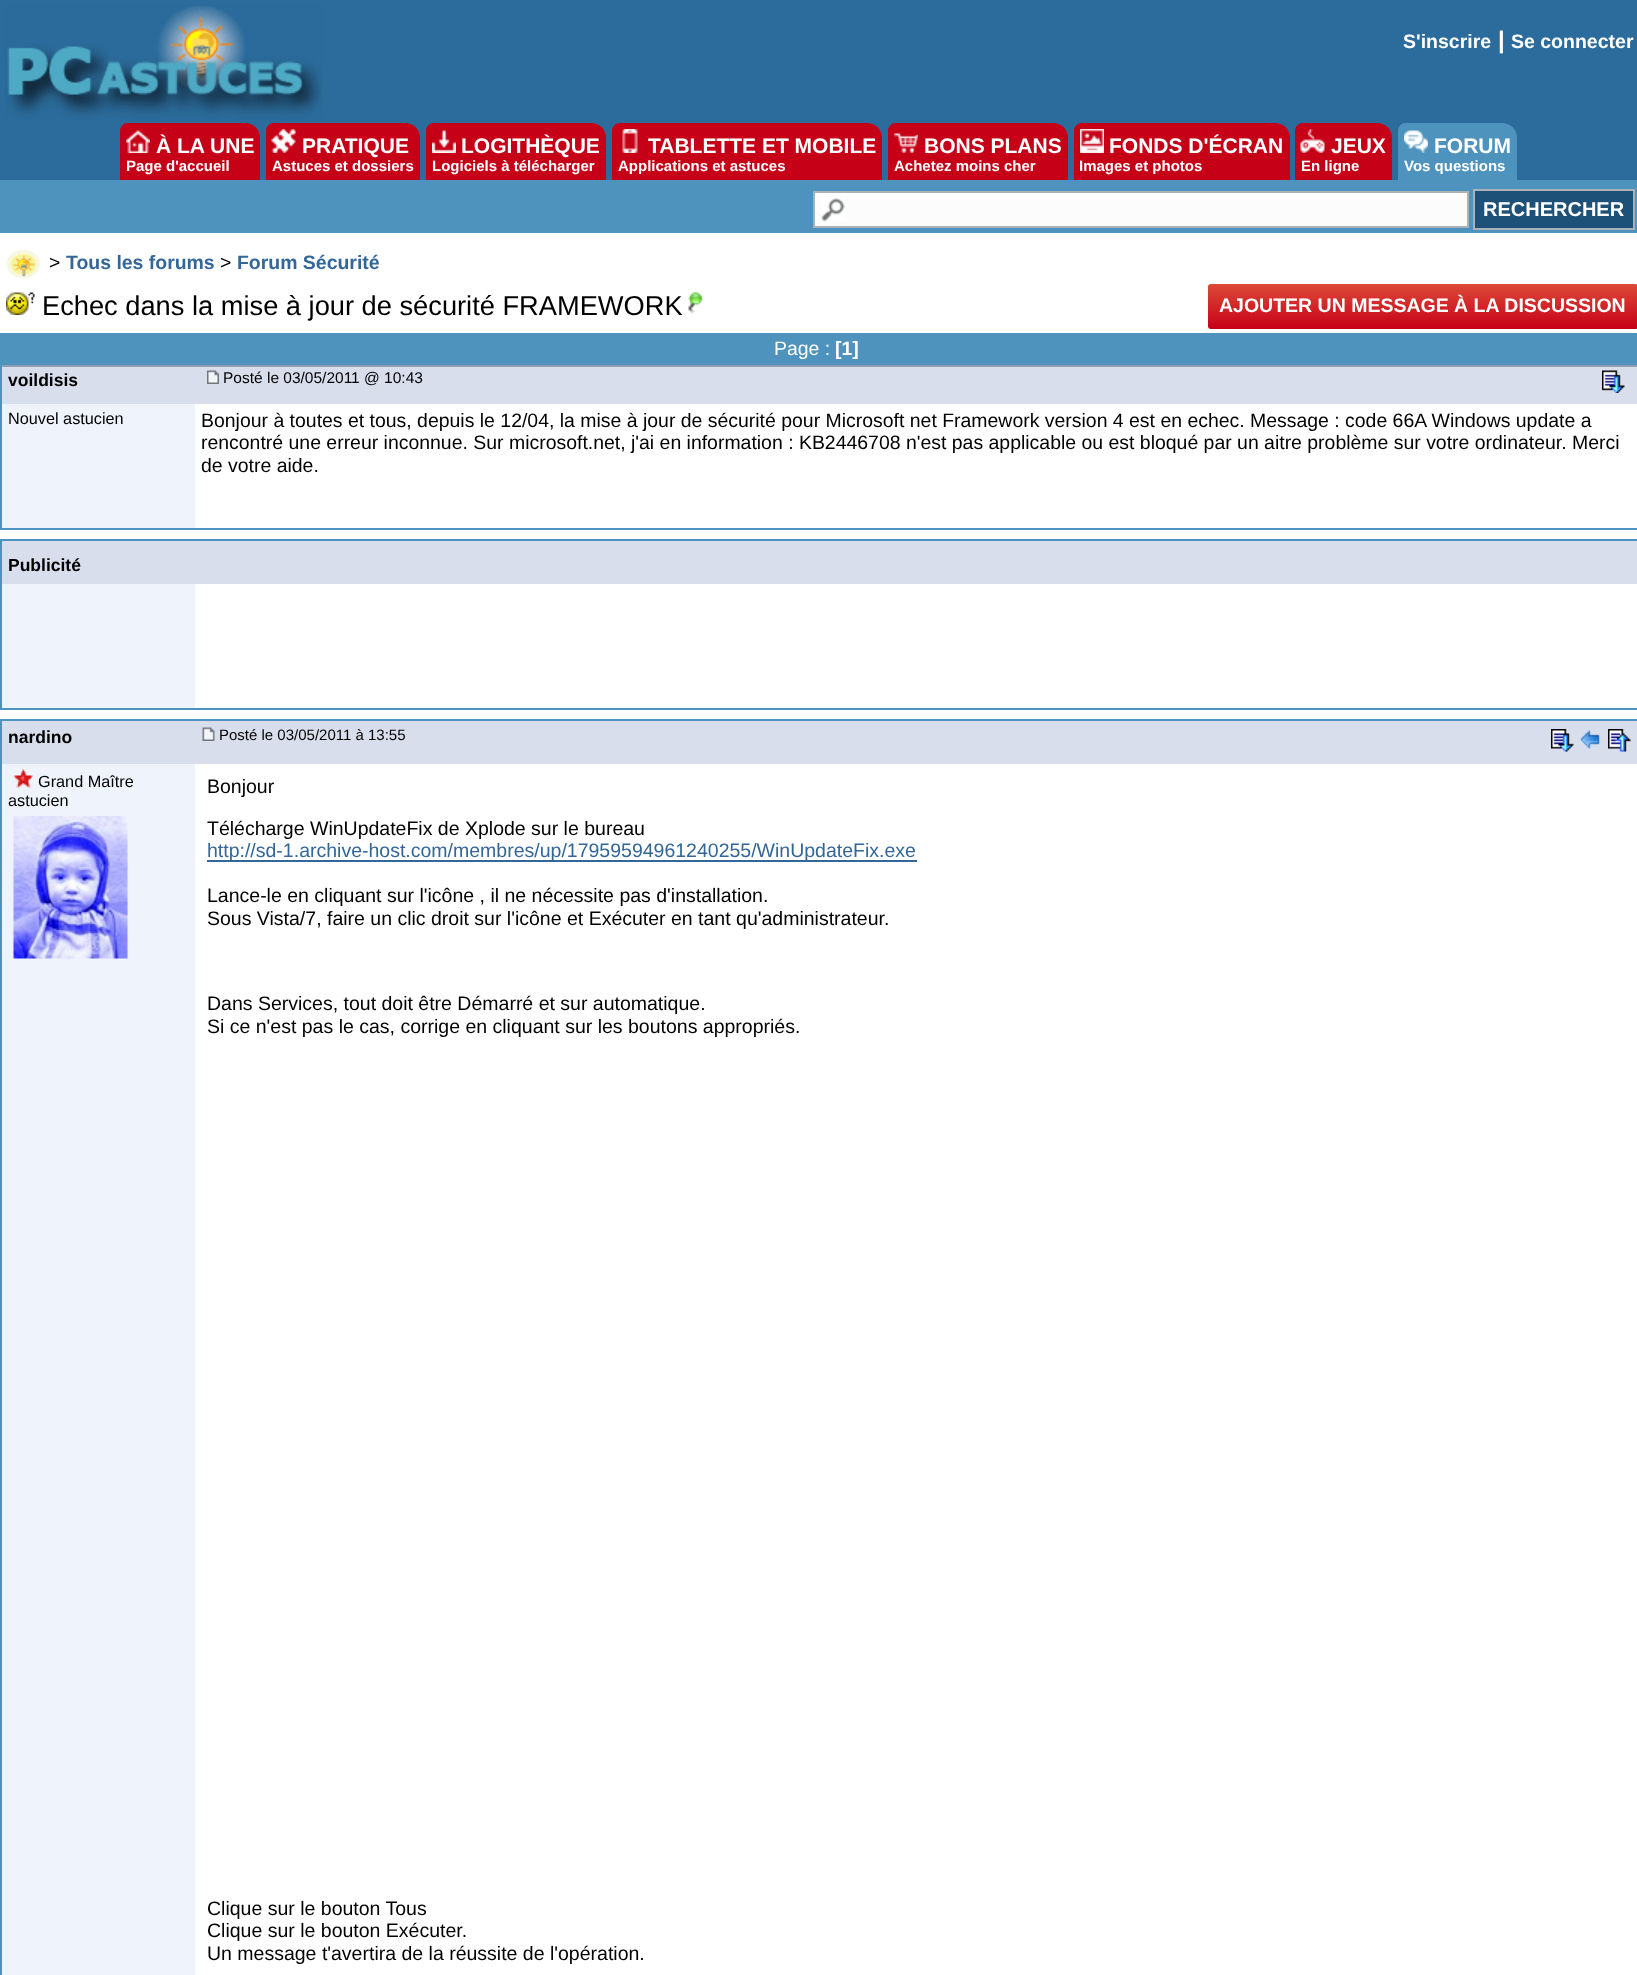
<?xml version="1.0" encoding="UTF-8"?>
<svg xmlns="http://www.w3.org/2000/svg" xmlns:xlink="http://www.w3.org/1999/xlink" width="1637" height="1975">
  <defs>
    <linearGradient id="g1" gradientUnits="userSpaceOnUse" x1="1423" y1="283" x2="1423" y2="329"><stop offset="0" stop-color="#dd4b39" /><stop offset="1" stop-color="#c60017" /></linearGradient>
  </defs>
  <rect width="100%" height="100%" fill="#ffffff" />
  <rect width="1637" height="180" fill="#2c6c9d" />
  <image x="6" y="5" width="317" height="115" xlink:href="image1.png" />
  <path d="M 128 123 h 117 c 8.5 0 15 6.5 15 15 v 42 h -140 v -49 c 0 -4.5 3.5 -8 8 -8 z" fill="#c60017" />
  <image x="126" y="130" width="24" height="23" xlink:href="image2.png" />
  <path d="M 274 123 h 131 c 8.5 0 15 6.5 15 15 v 42 h -154 v -49 c 0 -4.5 3.5 -8 8 -8 z" fill="#c60017" />
  <image x="271" y="129" width="25" height="24" xlink:href="image3.png" />
  <path d="M 434 123 h 157 c 8.5 0 15 6.5 15 15 v 42 h -180 v -49 c 0 -4.5 3.5 -8 8 -8 z" fill="#c60017" />
  <image x="432" y="130" width="24" height="23" xlink:href="image4.png" />
  <path d="M 620 123 h 247 c 8.5 0 15 6.5 15 15 v 42 h -270 v -49 c 0 -4.5 3.5 -8 8 -8 z" fill="#c60017" />
  <image x="622" y="129" width="16" height="24" xlink:href="image5.png" />
  <path d="M 896 123 h 157 c 8.5 0 15 6.5 15 15 v 42 h -180 v -49 c 0 -4.5 3.5 -8 8 -8 z" fill="#c60017" />
  <image x="894" y="133" width="24" height="20" xlink:href="image6.png" />
  <path d="M 1082 123 h 193 c 8.5 0 15 6.5 15 15 v 42 h -216 v -49 c 0 -4.5 3.5 -8 8 -8 z" fill="#c60017" />
  <image x="1080" y="129" width="24" height="24" xlink:href="image7.png" />
  <path d="M 1303 123 h 74 c 8.5 0 15 6.5 15 15 v 42 h -97 v -49 c 0 -4.5 3.5 -8 8 -8 z" fill="#c60017" />
  <image x="1300" y="129" width="25" height="24" xlink:href="image8.png" />
  <path d="M 1406 123 h 96 c 8.5 0 15 6.5 15 15 v 42 h -119 v -49 c 0 -4.5 3.5 -8 8 -8 z" fill="#4e93bd" />
  <image x="1404" y="130" width="24" height="23" xlink:href="image9.png" />
  <rect y="180" width="1637" height="53" fill="#4e93bd" />
  <rect x="815" y="193" width="652" height="33" fill="#fcfcfc" />
  <image x="821" y="198" width="24" height="24" xlink:href="image10.png" />
  <rect x="814" y="192" width="654" height="35" fill="none" stroke="#acb1b7" stroke-width="2" />
  <rect x="1474" y="190" width="160" height="39" fill="#1e5178" stroke="#acb1b7" stroke-width="2" />
  <image x="6" y="249" width="35" height="30" xlink:href="image11.png" />
  <image x="6" y="292" width="29" height="23" xlink:href="image12.png" />
  <image x="688" y="292" width="15" height="22" xlink:href="image13.png" />
  <rect x="1208" y="284" width="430" height="45" rx="3" fill="url(#g1)" />
  <rect y="333" width="1637" height="32" fill="#4e93bd" />
  <rect x="2" y="367" width="1635" height="37" fill="#d8deeb" />
  <rect y="365" width="1637" height="2" fill="#90a0b0" />
  <rect y="365" width="2" height="39" fill="#4e93bd" />
  <image x="207" y="370" width="12" height="14" xlink:href="image14.png" />
  <image x="1602" y="370" width="23" height="23" xlink:href="image15.png" />
  <rect x="2" y="404" width="193" height="124" fill="#eff4fc" />
  <rect y="528" width="1637" height="2" fill="#4e93bd" />
  <rect y="404" width="2" height="126" fill="#4e93bd" />
  <rect x="2" y="541" width="1635" height="43" fill="#d8deeb" />
  <rect y="539" width="1637" height="2" fill="#4e93bd" />
  <rect y="539" width="2" height="45" fill="#4e93bd" />
  <rect x="2" y="584" width="193" height="124" fill="#eff4fc" />
  <rect y="708" width="1637" height="2" fill="#4e93bd" />
  <rect y="584" width="2" height="126" fill="#4e93bd" />
  <rect x="2" y="721" width="1635" height="43" fill="#d8deeb" />
  <rect y="719" width="1637" height="2" fill="#4e93bd" />
  <rect y="719" width="2" height="1256" fill="#4e93bd" />
  <image x="202" y="727" width="13" height="14" xlink:href="image16.png" />
  <image x="1551" y="729" width="23" height="23" xlink:href="image17.png" />
  <image x="1579" y="730" width="21" height="19" xlink:href="image18.png" />
  <image x="1608" y="729" width="23" height="23" xlink:href="image19.png" />
  <rect x="2" y="764" width="193" height="1211" fill="#eff4fc" />
  <image x="13" y="769" width="20" height="19" xlink:href="image20.png" />
  <image x="13" y="816" width="115" height="143" xlink:href="image21.png" />
  <rect x="207" y="860" width="710" height="2" fill="#336699" />
  <text x="1403" y="48" style="font-family: Liberation Sans; font-size: 19.5px; font-weight: bold; fill: #ffffff">S'inscrire</text>
  <text x="1498" y="48" style="font-family: Liberation Sans; font-size: 24px; font-weight: bold; fill: #ffffff">|</text>
  <text x="1511" y="48" style="font-family: Liberation Sans; font-size: 19.5px; font-weight: bold; fill: #ffffff">Se connecter</text>
  <text x="156" y="153" style="font-family: Liberation Sans; font-size: 21px; font-weight: bold; fill: #ffffff">À LA UNE</text>
  <text x="126" y="171" style="font-family: Liberation Sans; font-size: 15px; font-weight: bold; fill: #ffffff">Page d'accueil</text>
  <text x="302" y="153" style="font-family: Liberation Sans; font-size: 21px; font-weight: bold; fill: #ffffff">PRATIQUE</text>
  <text x="272" y="171" style="font-family: Liberation Sans; font-size: 15px; font-weight: bold; fill: #ffffff">Astuces et dossiers</text>
  <text x="461" y="153" style="font-family: Liberation Sans; font-size: 21px; font-weight: bold; fill: #ffffff">LOGITHÈQUE</text>
  <text x="432" y="171" style="font-family: Liberation Sans; font-size: 15px; font-weight: bold; fill: #ffffff">Logiciels à télécharger</text>
  <text x="648" y="153" style="font-family: Liberation Sans; font-size: 21px; font-weight: bold; fill: #ffffff">TABLETTE ET MOBILE</text>
  <text x="618" y="171" style="font-family: Liberation Sans; font-size: 15px; font-weight: bold; fill: #ffffff">Applications et astuces</text>
  <text x="924" y="153" style="font-family: Liberation Sans; font-size: 21px; font-weight: bold; fill: #ffffff">BONS PLANS</text>
  <text x="894" y="171" style="font-family: Liberation Sans; font-size: 15px; font-weight: bold; fill: #ffffff">Achetez moins cher</text>
  <text x="1109" y="153" style="font-family: Liberation Sans; font-size: 21px; font-weight: bold; fill: #ffffff">FONDS D'ÉCRAN</text>
  <text x="1079" y="171" style="font-family: Liberation Sans; font-size: 15px; font-weight: bold; fill: #ffffff">Images et photos</text>
  <text x="1331" y="153" style="font-family: Liberation Sans; font-size: 21px; font-weight: bold; fill: #ffffff">JEUX</text>
  <text x="1301" y="171" style="font-family: Liberation Sans; font-size: 15px; font-weight: bold; fill: #ffffff">En ligne</text>
  <text x="1434" y="153" style="font-family: Liberation Sans; font-size: 21px; font-weight: bold; fill: #ffffff">FORUM</text>
  <text x="1404" y="171" style="font-family: Liberation Sans; font-size: 15px; font-weight: bold; fill: #ffffff">Vos questions</text>
  <text x="1483" y="216" style="font-family: Liberation Sans; font-size: 20px; font-weight: bold; fill: #ffffff">RECHERCHER</text>
  <text x="49" y="269" style="font-family: Liberation Sans; font-size: 19.45px; fill: #000000">&gt;</text>
  <text x="66" y="269" style="font-family: Liberation Sans; font-size: 19.45px; font-weight: bold; fill: #336699">Tous les forums</text>
  <text x="220" y="269" style="font-family: Liberation Sans; font-size: 19.45px; fill: #000000">&gt;</text>
  <text x="237" y="269" style="font-family: Liberation Sans; font-size: 19.45px; font-weight: bold; fill: #336699">Forum Sécurité</text>
  <text x="42" y="315" style="font-family: Liberation Sans; font-size: 27.25px; fill: #000000">Echec dans la mise à jour de sécurité FRAMEWORK</text>
  <text x="1219" y="312" style="font-family: Liberation Sans; font-size: 19.5px; font-weight: bold; fill: #ffffff">AJOUTER UN MESSAGE À LA DISCUSSION</text>
  <text x="774" y="355" style="font-family: Liberation Sans; font-size: 19.45px; fill: #ffffff">Page :</text>
  <text x="835" y="355" style="font-family: Liberation Sans; font-size: 19.45px; font-weight: bold; fill: #ffffff">[1]</text>
  <text x="8" y="386" style="font-family: Liberation Sans; font-size: 17.5px; font-weight: bold; fill: #000000">voildisis</text>
  <text x="223" y="383" style="font-family: Liberation Sans; font-size: 15.5px; fill: #000000">Posté le 03/05/2011 @ 10:43</text>
  <text x="8" y="424" style="font-family: Liberation Sans; font-size: 16.25px; fill: #000000">Nouvel astucien</text>
  <text x="201" y="427" style="font-family: Liberation Sans; font-size: 19.45px; fill: #000000">Bonjour à toutes et tous, depuis le 12/04, la mise à jour de sécurité pour Microsoft net Framework version 4 est en echec.</text>
  <text x="1250" y="427" style="font-family: Liberation Sans; font-size: 19.45px; fill: #000000">Message : code 66A Windows update a</text>
  <text x="201" y="449" style="font-family: Liberation Sans; font-size: 19.45px; fill: #000000">rencontré une erreur inconnue. Sur microsoft.net, j'ai en information : KB2446708 n'est pas applicable ou est bloqué par un aitre problème sur votre ordinateur. Merci</text>
  <text x="201" y="472" style="font-family: Liberation Sans; font-size: 19.45px; fill: #000000">de votre aide.</text>
  <text x="8" y="571" style="font-family: Liberation Sans; font-size: 17.5px; font-weight: bold; fill: #000000">Publicité</text>
  <text x="8" y="743" style="font-family: Liberation Sans; font-size: 17.5px; font-weight: bold; fill: #000000">nardino</text>
  <text x="219" y="740" style="font-family: Liberation Sans; font-size: 15px; fill: #000000">Posté le 03/05/2011 à 13:55</text>
  <text x="38" y="787" style="font-family: Liberation Sans; font-size: 16.25px; fill: #000000">Grand Maître</text>
  <text x="8" y="806" style="font-family: Liberation Sans; font-size: 16.25px; fill: #000000">astucien</text>
  <text x="207" y="793" style="font-family: Liberation Sans; font-size: 19.5px; fill: #000000">Bonjour</text>
  <text x="207" y="835" style="font-family: Liberation Sans; font-size: 19.5px; fill: #000000">Télécharge WinUpdateFix de Xplode sur le bureau</text>
  <text x="207" y="857" style="font-family: Liberation Sans; font-size: 19.5px; fill: #336699">http://sd-1.archive-host.com/membres/up/17959594961240255/WinUpdateFix.exe</text>
  <text x="207" y="902" style="font-family: Liberation Sans; font-size: 19.5px; fill: #000000">Lance-le en cliquant sur l'icône , il ne nécessite pas d'installation.</text>
  <text x="207" y="925" style="font-family: Liberation Sans; font-size: 19.5px; fill: #000000">Sous Vista/7, faire un clic droit sur l'icône et Exécuter en tant qu'administrateur.</text>
  <text x="207" y="1010" style="font-family: Liberation Sans; font-size: 19.5px; fill: #000000">Dans Services, tout doit être Démarré et sur automatique.</text>
  <text x="207" y="1033" style="font-family: Liberation Sans; font-size: 19.5px; fill: #000000">Si ce n'est pas le cas, corrige en cliquant sur les boutons appropriés.</text>
  <text x="207" y="1915" style="font-family: Liberation Sans; font-size: 19.5px; fill: #000000">Clique sur le bouton Tous</text>
  <text x="207" y="1937" style="font-family: Liberation Sans; font-size: 19.5px; fill: #000000">Clique sur le bouton Exécuter.</text>
  <text x="207" y="1960" style="font-family: Liberation Sans; font-size: 19.5px; fill: #000000">Un message t'avertira de la réussite de l'opération.</text>
</svg>
